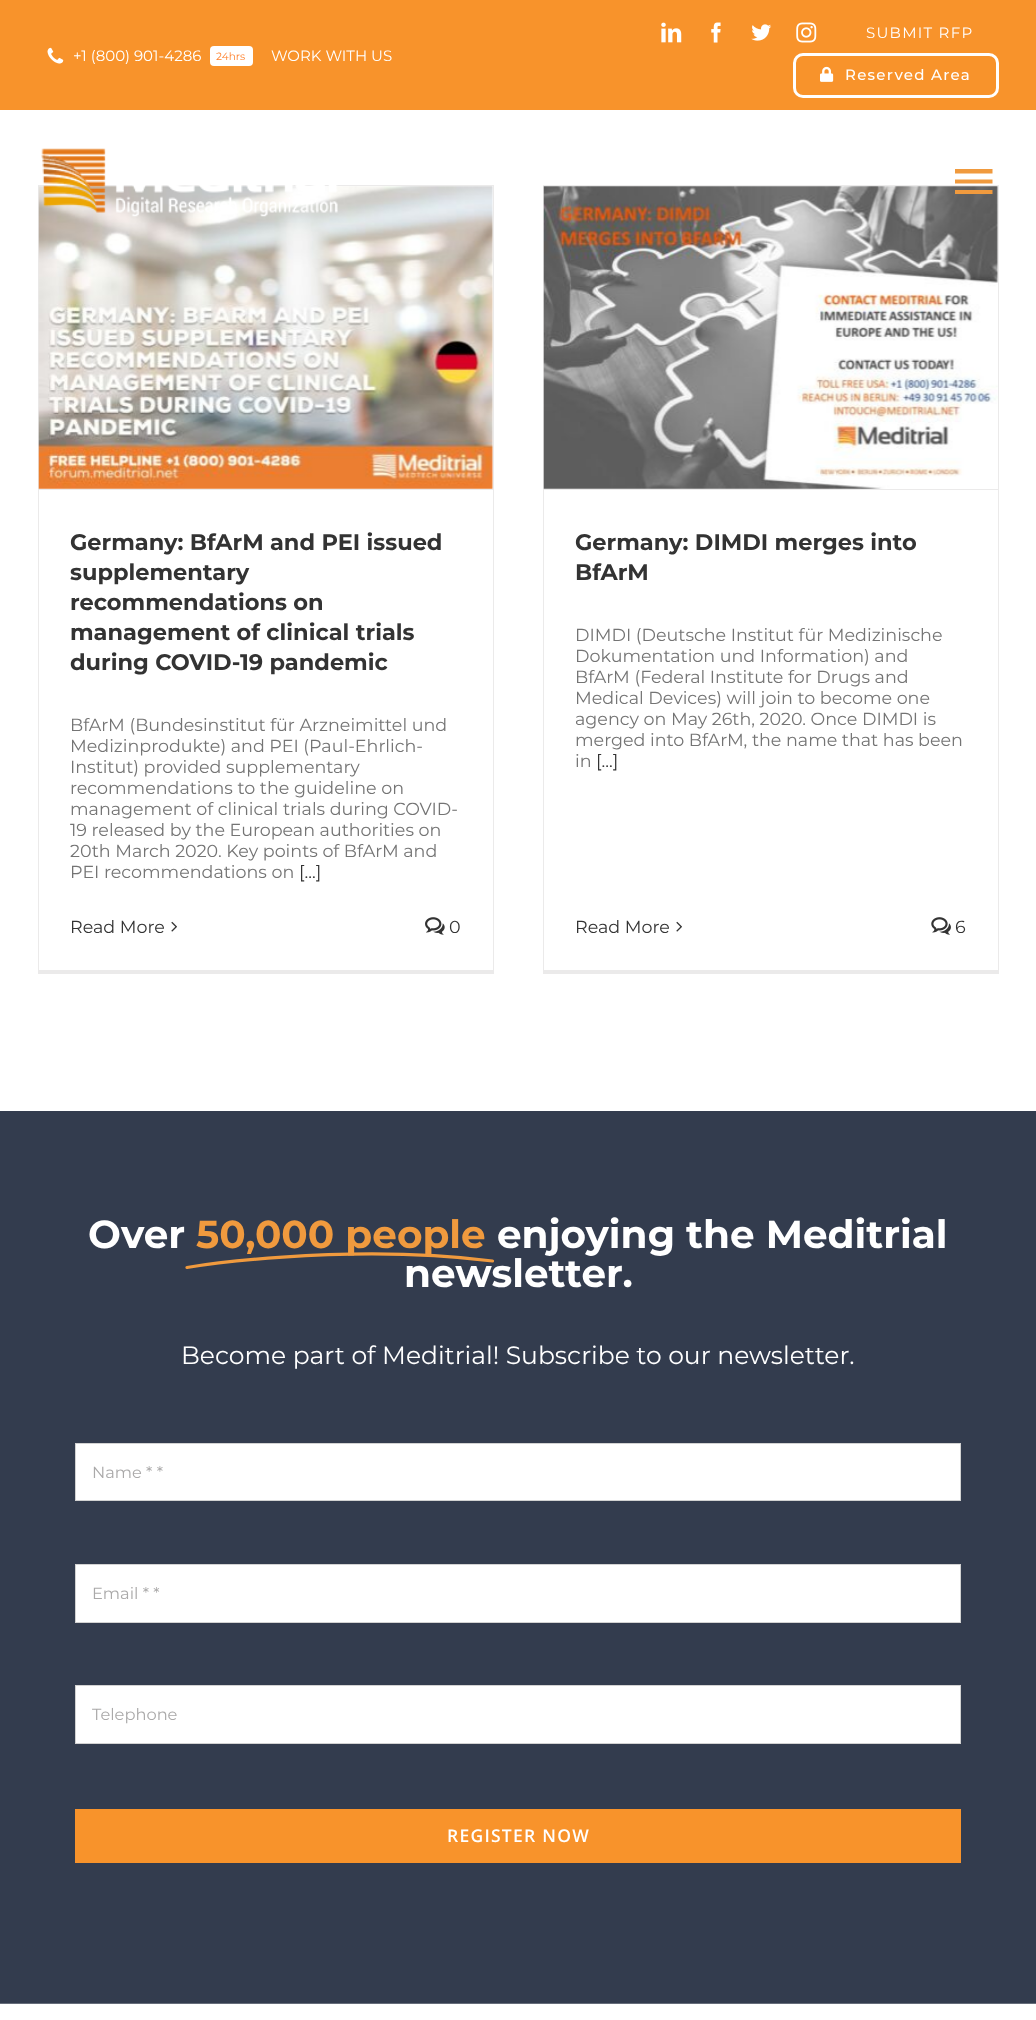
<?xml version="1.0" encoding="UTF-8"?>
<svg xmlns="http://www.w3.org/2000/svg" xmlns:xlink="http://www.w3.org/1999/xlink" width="1036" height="2020">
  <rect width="100%" height="100%" fill="#ffffff" />
  <rect width="1036" height="110" fill="#f8932b" />
  <image x="47" y="47" width="17" height="17" xlink:href="image1.png" />
  <rect x="210" y="46" width="43" height="20" rx="4" fill="#ffffff" />
  <image x="661" y="22" width="21" height="21" xlink:href="image2.png" />
  <image x="711" y="22" width="10" height="21" xlink:href="image3.png" />
  <image x="751" y="24" width="21" height="17" xlink:href="image4.png" />
  <image x="796" y="22" width="21" height="21" xlink:href="image5.png" />
  <rect x="794.5" y="54.5" width="203" height="42" rx="8.5" fill="none" stroke="#ffffff" stroke-width="3" />
  <image x="820" y="66" width="14" height="16" xlink:href="image6.png" />
  <rect x="38" y="185" width="456" height="1" fill="#ebeaea" />
  <rect x="493" y="185" width="1" height="789" fill="#ebeaea" />
  <rect x="38" y="970" width="456" height="4" fill="#ebeaea" />
  <rect x="38" y="185" width="1" height="789" fill="#ebeaea" />
  <image x="38" y="186" width="455" height="303" xlink:href="image8.png" />
  <image x="41" y="148" width="297" height="69" xlink:href="image7.png" />
  <rect x="543" y="185" width="456" height="1" fill="#ebeaea" />
  <rect x="998" y="185" width="1" height="789" fill="#ebeaea" />
  <rect x="543" y="970" width="456" height="4" fill="#ebeaea" />
  <rect x="543" y="185" width="1" height="789" fill="#ebeaea" />
  <image x="543" y="186" width="455" height="303" xlink:href="image11.png" />
  <path d="M 955 169 h 37.5 v 4.5 h -37.5 z m 0 14.5 v -4 h 37.5 v 4 z m 0 10.5 v -4 h 37.5 v 4 z" fill="#f09a3e" />
  <rect x="39" y="489" width="454" height="1" fill="#ebeaea" />
  <image x="171" y="921" width="6" height="11" xlink:href="image9.png" />
  <image x="425" y="917" width="20" height="18" xlink:href="image10.png" />
  <rect x="544" y="489" width="454" height="1" fill="#ebeaea" />
  <image x="676" y="921" width="6" height="11" xlink:href="image9.png" />
  <image x="931" y="917" width="20" height="18" xlink:href="image12.png" />
  <rect y="1111" width="1036" height="892" fill="#333c4e" />
  <rect x="75.5" y="1443.5" width="885" height="57" fill="#ffffff" stroke="#d2d2d2" />
  <rect x="75.5" y="1564.5" width="885" height="58" fill="#ffffff" stroke="#d2d2d2" />
  <rect x="75.5" y="1685.5" width="885" height="58" fill="#ffffff" stroke="#d2d2d2" />
  <rect x="75" y="1809" width="886" height="54" fill="#f8932b" />
  <rect y="2003" width="1036" height="1" fill="#666d7a" />
  <text x="73" y="61" style="font-family: Montserrat; font-size: 15px; fill: #ffffff">+1 (800) 901-4286</text>
  <text x="216" y="60" style="font-family: Montserrat; font-size: 10.5px; fill: #ff812c">24hrs</text>
  <text x="271" y="61" style="font-family: Montserrat; font-size: 15px; fill: #ffffff">WORK WITH US</text>
  <text x="866" y="38" style="font-family: Montserrat; font-size: 15px; letter-spacing: 1.25px; fill: #ffffff">SUBMIT RFP</text>
  <text x="845" y="80" style="font-family: Montserrat; font-size: 15px; font-weight: 500; letter-spacing: 1.25px; fill: #ffffff">Reserved Area</text>
  <text x="70" y="550" style="font-family: Montserrat; font-size: 22.5px; font-weight: bold; fill: #333333">Germany: BfArM and PEI issued</text>
  <text x="70" y="580" style="font-family: Montserrat; font-size: 22.5px; font-weight: bold; fill: #333333">supplementary</text>
  <text x="70" y="610" style="font-family: Montserrat; font-size: 22.5px; font-weight: bold; fill: #333333">recommendations on</text>
  <text x="70" y="640" style="font-family: Montserrat; font-size: 22.5px; font-weight: bold; fill: #333333">management of clinical trials</text>
  <text x="70" y="670" style="font-family: Montserrat; font-size: 22.5px; font-weight: bold; fill: #333333">during COVID-19 pandemic</text>
  <text x="70" y="731" style="font-family: Montserrat; font-size: 17.5px; fill: #747474">BfArM (Bundesinstitut für Arzneimittel und</text>
  <text x="70" y="752" style="font-family: Montserrat; font-size: 17.5px; fill: #747474">Medizinprodukte) and PEI (Paul-Ehrlich-</text>
  <text x="70" y="773" style="font-family: Montserrat; font-size: 17.5px; fill: #747474">Institut) provided supplementary</text>
  <text x="70" y="794" style="font-family: Montserrat; font-size: 17.5px; fill: #747474">recommendations to the guideline on</text>
  <text x="70" y="815" style="font-family: Montserrat; font-size: 17.5px; fill: #747474">management of clinical trials during COVID-</text>
  <text x="70" y="836" style="font-family: Montserrat; font-size: 17.5px; fill: #747474">19 released by the European authorities on</text>
  <text x="70" y="857" style="font-family: Montserrat; font-size: 17.5px; fill: #747474">20th March 2020. Key points of BfArM and</text>
  <text x="70" y="878" style="font-family: Montserrat; font-size: 17.5px; fill: #747474">PEI recommendations on</text>
  <text x="299" y="878" style="font-family: Montserrat; font-size: 17.5px; fill: #333333">[...]</text>
  <text x="70" y="933" style="font-family: Montserrat; font-size: 17.5px; fill: #333333">Read More</text>
  <text x="449" y="933" style="font-family: Montserrat; font-size: 17.5px; fill: #333333">0</text>
  <text x="575" y="550" style="font-family: Montserrat; font-size: 22.5px; font-weight: bold; fill: #333333">Germany: DIMDI merges into</text>
  <text x="575" y="580" style="font-family: Montserrat; font-size: 22.5px; font-weight: bold; fill: #333333">BfArM</text>
  <text x="575" y="641" style="font-family: Montserrat; font-size: 17.5px; fill: #747474">DIMDI (Deutsche Institut für Medizinische</text>
  <text x="575" y="662" style="font-family: Montserrat; font-size: 17.5px; fill: #747474">Dokumentation und Information) and</text>
  <text x="575" y="683" style="font-family: Montserrat; font-size: 17.5px; fill: #747474">BfArM (Federal Institute for Drugs and</text>
  <text x="575" y="704" style="font-family: Montserrat; font-size: 17.5px; fill: #747474">Medical Devices) will join to become one</text>
  <text x="575" y="725" style="font-family: Montserrat; font-size: 17.5px; fill: #747474">agency on May 26th, 2020. Once DIMDI is</text>
  <text x="575" y="746" style="font-family: Montserrat; font-size: 17.5px; fill: #747474">merged into BfArM, the name that has been</text>
  <text x="575" y="767" style="font-family: Montserrat; font-size: 17.5px; fill: #747474">in</text>
  <text x="596" y="767" style="font-family: Montserrat; font-size: 17.5px; fill: #333333">[...]</text>
  <text x="575" y="933" style="font-family: Montserrat; font-size: 17.5px; fill: #333333">Read More</text>
  <text x="955" y="933" style="font-family: Montserrat; font-size: 17.5px; fill: #333333">6</text>
  <text x="88" y="1248" style="font-family: Montserrat; font-size: 39px; font-weight: bold; fill: #ffffff">Over</text>
  <text x="196" y="1248" style="font-family: Montserrat; font-size: 39px; font-weight: bold; fill: #f09a3e">50,000 people</text>
  <text x="497" y="1248" style="font-family: Montserrat; font-size: 39px; font-weight: bold; fill: #ffffff">enjoying the Meditrial</text>
  <text x="404" y="1287" style="font-family: Montserrat; font-size: 39px; font-weight: bold; fill: #ffffff">newsletter.</text>
  <path d="M 187 1267.5 c 0 0 153.5 -25.5 305.5 -6.5" fill="none" stroke="#f09a3e" stroke-width="3.2" stroke-linecap="round" stroke-linejoin="round" />
  <text x="181" y="1364" style="font-family: Montserrat; font-size: 25px; fill: #ffffff">Become part of Meditrial! Subscribe to our newsletter.</text>
  <text x="92" y="1478" style="font-family: Montserrat; font-size: 16.25px; fill: #aaa9a9">Name * *</text>
  <text x="92" y="1599" style="font-family: Montserrat; font-size: 16.25px; fill: #aaa9a9">Email * *</text>
  <text x="92" y="1720" style="font-family: Montserrat; font-size: 16.25px; fill: #aaa9a9">Telephone</text>
  <text x="447" y="1842" style="font-family: Open Sans; font-size: 17.5px; font-weight: 600; letter-spacing: 1.25px; fill: #ffffff">REGISTER NOW</text>
</svg>
